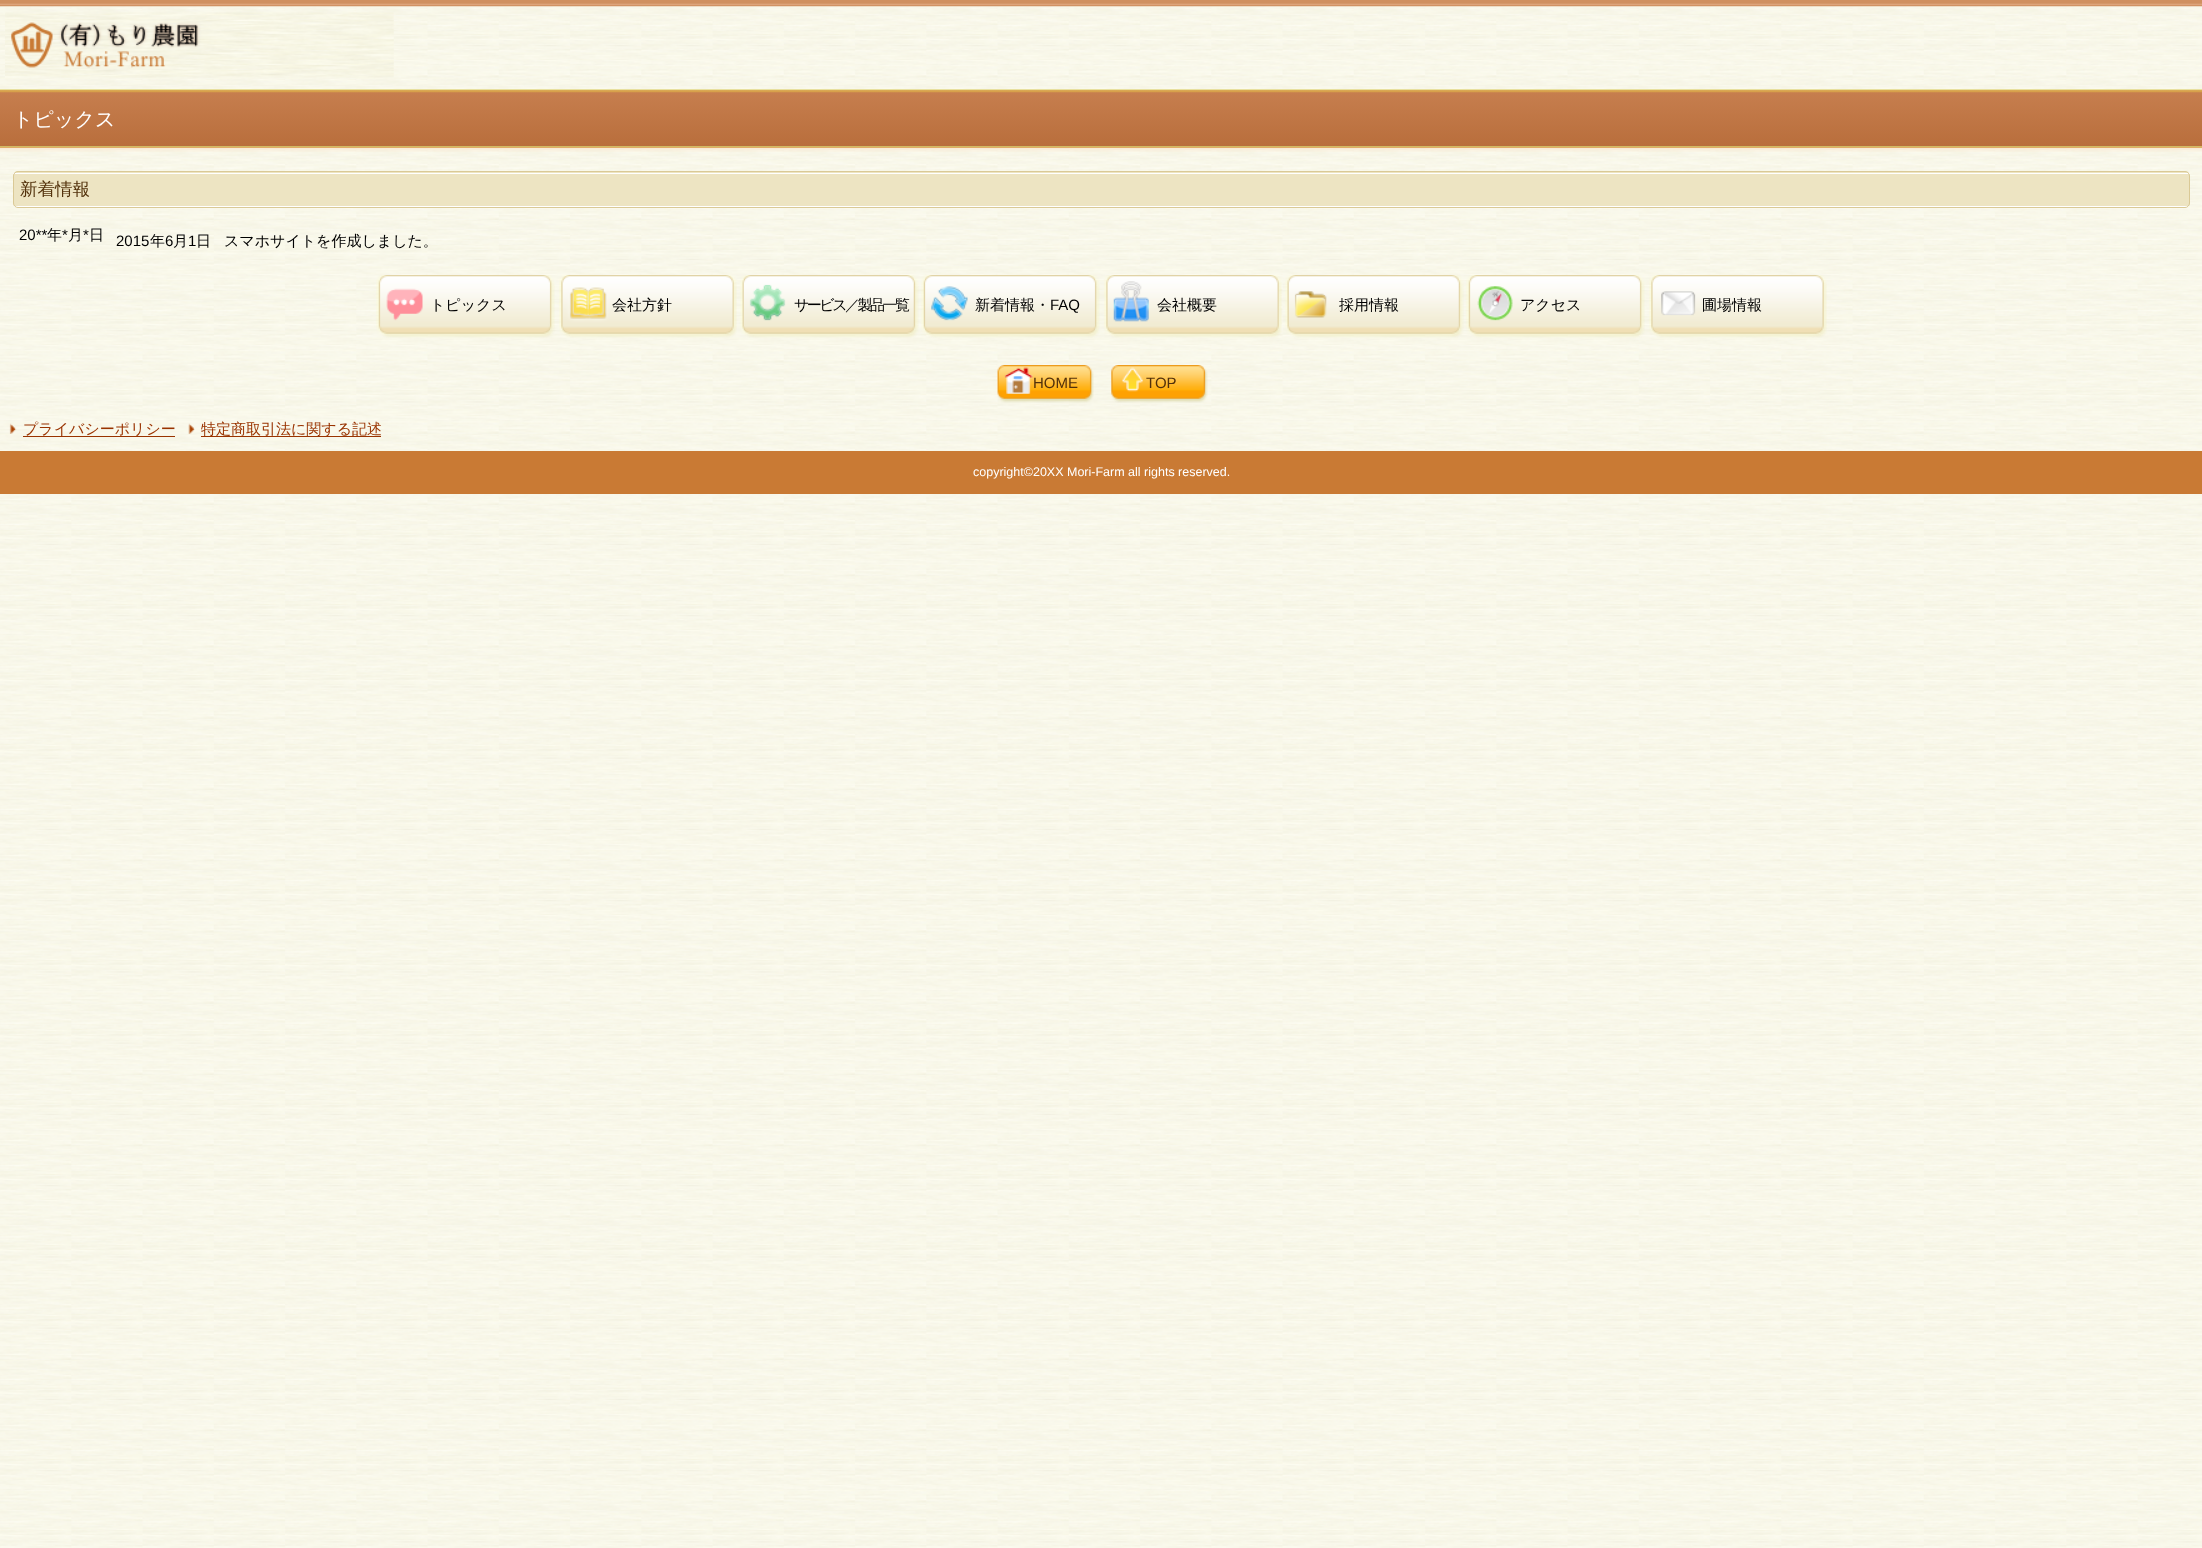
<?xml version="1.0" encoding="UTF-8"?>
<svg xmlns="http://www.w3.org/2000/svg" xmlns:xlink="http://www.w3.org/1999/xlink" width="2202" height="1548">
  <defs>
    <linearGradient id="g1" gradientUnits="userSpaceOnUse" x1="0" y1="90" x2="0" y2="146"><stop offset="0" stop-color="#e8e09f" /><stop offset="0.01" stop-color="#d8a14b" /><stop offset="0.03" stop-color="#d8a14b" /><stop offset="0.05" stop-color="#c67e4e" /><stop offset="1" stop-color="#b96e3c" /></linearGradient>
    <linearGradient id="g2" gradientUnits="userSpaceOnUse" x1="0" y1="146" x2="0" y2="203"><stop offset="0" stop-color="#e8e09f" /><stop offset="0.01" stop-color="#d8a14b" /><stop offset="0.03" stop-color="#d8a14b" /><stop offset="0.05" stop-color="#c67e4e" /><stop offset="1" stop-color="#b96e3c" /></linearGradient>
    <clipPath id="clip1"><rect x="13" y="171" width="2177" height="37" rx="5" /></clipPath>
  </defs>
  <rect width="100%" height="100%" fill="#ffffff" />
  <image x="0" y="6" width="2202" height="1542" xlink:href="image1.png" />
  <image x="0" y="0" width="2202" height="7" xlink:href="image2.png" />
  <image x="5" y="12" width="389" height="66" xlink:href="image3.png" />
  <rect y="90" width="2202" height="56" fill="url(#g1)" />
  <rect y="147" width="2202" height="1" fill="url(#g2)" />
  <rect y="89" width="2202" height="1" fill="#e8e09f" />
  <rect y="146" width="2202" height="1" fill="#d1ba64" />
  <image x="0" y="147" width="2202" height="5" xlink:href="image4.png" />
  <g clip-path="url(#clip1)">
    <rect x="13" y="171" width="2177" height="2" fill="#ede4c2" />
  </g>
  <rect x="13" y="173" width="2177" height="1" fill="#ffffff" />
  <g clip-path="url(#clip1)">
    <rect x="13" y="174" width="2177" height="32" fill="#ede4c2" />
    <rect x="13" y="206" width="2177" height="1" fill="#ffffff" />
  </g>
  <rect x="13.5" y="171.5" width="2176" height="36" rx="4.5" fill="none" stroke="#dac996" />
  <image x="376" y="275" width="179" height="63" xlink:href="image5.png" />
  <image x="559" y="275" width="178" height="63" xlink:href="image6.png" />
  <image x="740" y="275" width="179" height="63" xlink:href="image7.png" />
  <image x="921" y="275" width="179" height="63" xlink:href="image8.png" />
  <image x="1104" y="275" width="178" height="63" xlink:href="image9.png" />
  <image x="1285" y="275" width="179" height="63" xlink:href="image10.png" />
  <image x="1466" y="275" width="179" height="63" xlink:href="image11.png" />
  <image x="1649" y="275" width="178" height="63" xlink:href="image12.png" />
  <image x="997" y="365" width="97" height="38" xlink:href="image13.png" />
  <image x="1111" y="365" width="97" height="38" xlink:href="image14.png" />
  <image x="9" y="423" width="8" height="11" xlink:href="image15.png" />
  <rect x="23" y="436" width="152" height="1" fill="#993300" />
  <image x="188" y="423" width="7" height="11" xlink:href="image16.png" />
  <rect x="201" y="436" width="180" height="1" fill="#993300" />
  <rect y="451" width="2202" height="43" fill="#c97a34" />
  <text x="13" y="126" style="font-family: WenQuanYi Zen Hei; font-size: 20px; font-weight: 500; fill: #ffffff">トピックス</text>
  <text x="20" y="195" style="font-family: WenQuanYi Zen Hei; font-size: 17.5px; font-weight: 500; fill: #52310b">新着情報</text>
  <text x="19" y="240" style="font-family: Liberation Sans; font-size: 15px; fill: #000000">20**</text>
  <text x="47" y="240" style="font-family: WenQuanYi Zen Hei; font-size: 15px; font-weight: 500; fill: #000000">年</text>
  <text x="62" y="240" style="font-family: Liberation Sans; font-size: 15px; fill: #000000">*</text>
  <text x="68" y="240" style="font-family: WenQuanYi Zen Hei; font-size: 15px; font-weight: 500; fill: #000000">月</text>
  <text x="83" y="240" style="font-family: Liberation Sans; font-size: 15px; fill: #000000">*</text>
  <text x="89" y="240" style="font-family: WenQuanYi Zen Hei; font-size: 15px; font-weight: 500; fill: #000000">日</text>
  <text x="116" y="246" style="font-family: Liberation Sans; font-size: 15px; fill: #000000">2015</text>
  <text x="150" y="246" style="font-family: WenQuanYi Zen Hei; font-size: 15px; font-weight: 500; fill: #000000">年</text>
  <text x="165" y="246" style="font-family: Liberation Sans; font-size: 15px; fill: #000000">6</text>
  <text x="173" y="246" style="font-family: WenQuanYi Zen Hei; font-size: 15px; font-weight: 500; fill: #000000">月</text>
  <text x="188" y="246" style="font-family: Liberation Sans; font-size: 15px; fill: #000000">1</text>
  <text x="196" y="246" style="font-family: WenQuanYi Zen Hei; font-size: 15px; font-weight: 500; fill: #000000">日</text>
  <text x="224" y="246" style="font-family: WenQuanYi Zen Hei; font-size: 15px; font-weight: 500; fill: #000000">スマホサイトを作成しました。</text>
  <text x="430" y="310" style="font-family: WenQuanYi Zen Hei; font-size: 15px; font-weight: 500; fill: #000000">トピックス</text>
  <text x="612" y="310" style="font-family: WenQuanYi Zen Hei; font-size: 15px; font-weight: 500; fill: #000000">会社方針</text>
  <text x="794" y="310" style="font-family: WenQuanYi Zen Hei; font-size: 15px; font-weight: 500; letter-spacing: -2.5px; fill: #000000">サービス／製品一覧</text>
  <text x="975" y="310" style="font-family: WenQuanYi Zen Hei; font-size: 15px; font-weight: 500; fill: #000000">新着情報・</text>
  <text x="1050" y="310" style="font-family: Liberation Sans; font-size: 15px; fill: #000000">FAQ</text>
  <text x="1157" y="310" style="font-family: WenQuanYi Zen Hei; font-size: 15px; font-weight: 500; fill: #000000">会社概要</text>
  <text x="1339" y="310" style="font-family: WenQuanYi Zen Hei; font-size: 15px; font-weight: 500; fill: #000000">採用情報</text>
  <text x="1520" y="310" style="font-family: WenQuanYi Zen Hei; font-size: 15px; font-weight: 500; fill: #000000">アクセス</text>
  <text x="1702" y="310" style="font-family: WenQuanYi Zen Hei; font-size: 15px; font-weight: 500; fill: #000000">圃場情報</text>
  <text x="1033" y="388" style="font-family: Liberation Sans; font-size: 15px; fill: #52310b">HOME</text>
  <text x="1146" y="388" style="font-family: Liberation Sans; font-size: 15px; fill: #52310b">TOP</text>
  <text x="23" y="434" style="font-family: WenQuanYi Zen Hei; font-size: 15px; font-weight: 500; fill: #993300">プライバシーポリシー</text>
  <text x="201" y="434" style="font-family: WenQuanYi Zen Hei; font-size: 15px; font-weight: 500; fill: #993300">特定商取引法に関する記述</text>
  <text x="973" y="476" style="font-family: Liberation Sans; font-size: 12.5px; fill: #ffffff">copyright©20XX Mori-Farm all rights reserved.</text>
</svg>
